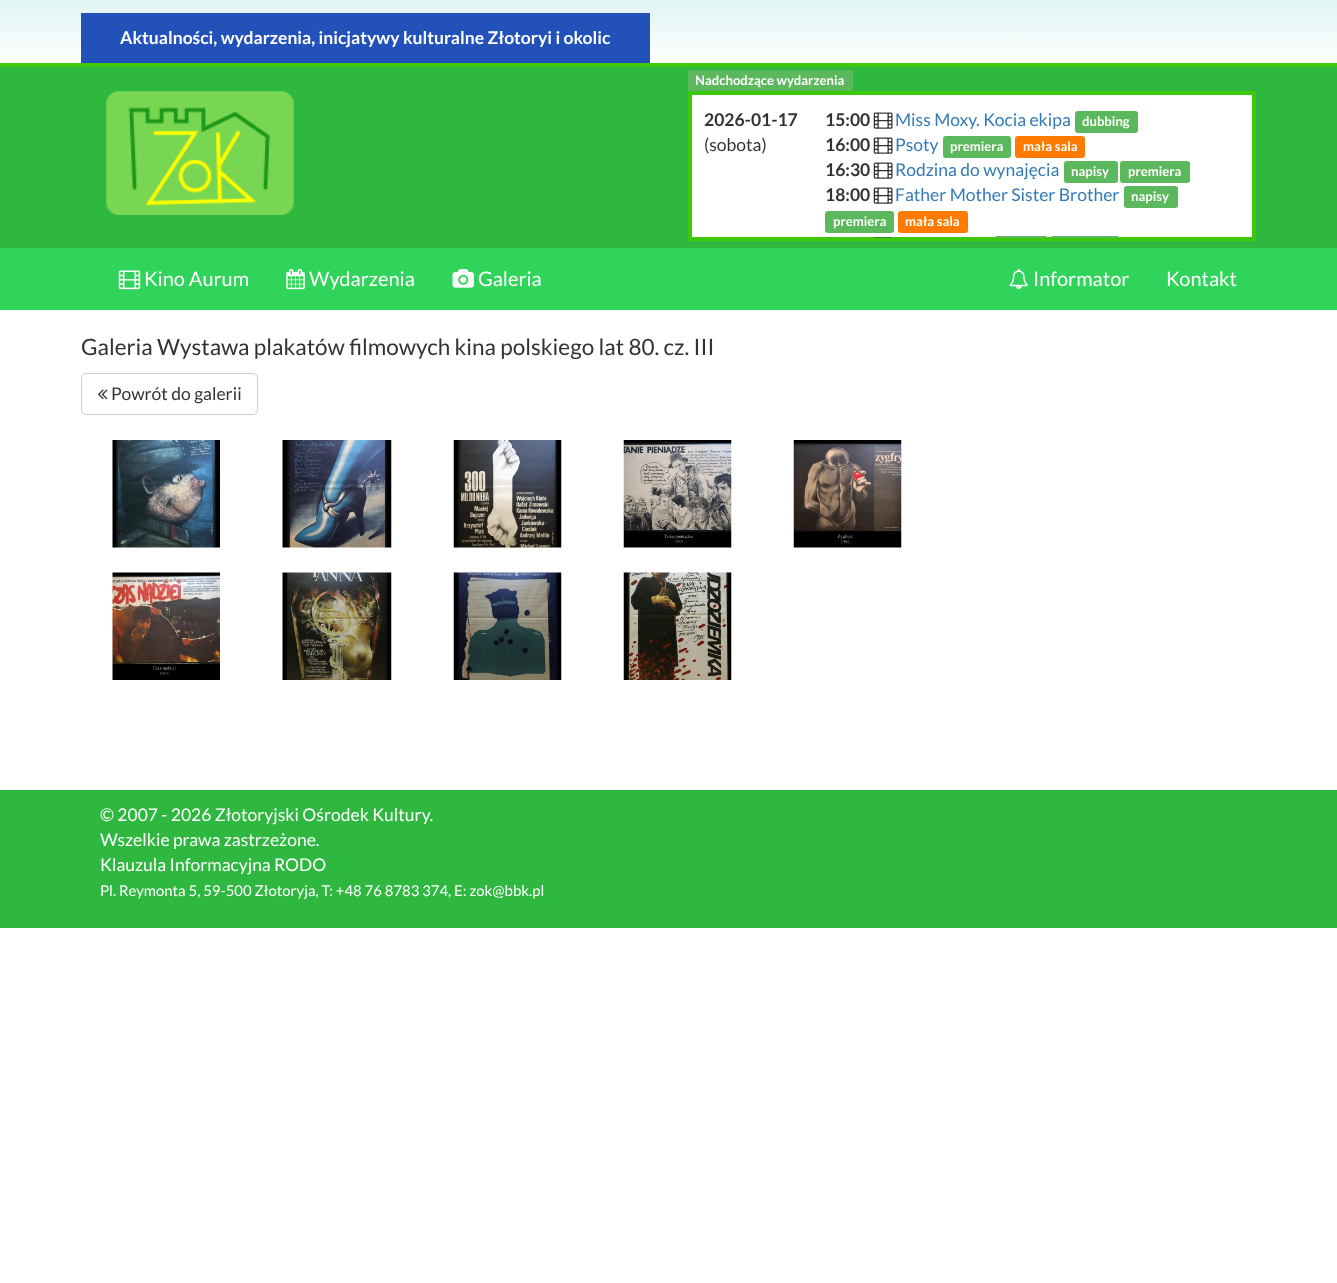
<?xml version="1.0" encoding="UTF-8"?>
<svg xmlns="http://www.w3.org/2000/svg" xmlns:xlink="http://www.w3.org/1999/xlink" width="1337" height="1283">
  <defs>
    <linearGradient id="g1" gradientUnits="userSpaceOnUse" x1="669" y1="0" x2="669" y2="63"><stop offset="0" stop-color="#e0f4f4" /><stop offset="1" stop-color="#ffffff" /></linearGradient>
  </defs>
  <rect width="100%" height="100%" fill="#ffffff" />
  <rect width="1337" height="58" fill="url(#g1)" />
  <rect x="81" y="13" width="569" height="50" fill="#2251ba" />
  <rect y="67" width="1337" height="181" fill="#2fb840" />
  <rect y="63" width="1337" height="4" fill="#3dc80c" />
  <image x="106" y="91" width="188" height="124" xlink:href="image1.png" />
  <rect x="688" y="70" width="165" height="21" rx="3" fill="#5cb85c" />
  <rect x="690" y="93" width="564" height="146" fill="#ffffff" stroke="#3dc80c" stroke-width="4" />
  <image x="873" y="112" width="20" height="17" xlink:href="image2.png" />
  <rect x="1075" y="111" width="63" height="22" rx="3" fill="#5cb85c" />
  <image x="873" y="137" width="20" height="17" xlink:href="image2.png" />
  <rect x="943" y="136" width="68" height="22" rx="3" fill="#5cb85c" />
  <rect x="1015" y="136" width="70" height="22" rx="3" fill="#ff7a00" />
  <image x="873" y="162" width="20" height="17" xlink:href="image2.png" />
  <rect x="1064" y="161" width="54" height="22" rx="3" fill="#5cb85c" />
  <rect x="1120" y="161" width="70" height="22" rx="3" fill="#5cb85c" />
  <image x="873" y="187" width="20" height="17" xlink:href="image2.png" />
  <rect x="1124" y="186" width="54" height="22" rx="3" fill="#5cb85c" />
  <rect x="825" y="211" width="69" height="22" rx="3" fill="#5cb85c" />
  <rect x="898" y="211" width="70" height="22" rx="3" fill="#ff7a00" />
  <image x="874" y="237" width="18" height="1" xlink:href="image3.png" />
  <path d="M 997 236 h 48 c 1.5 0 3 1.5 3 3 v -1 h -54 v 1 c 0 -1.5 1.5 -3 3 -3 z" fill="#5cb85c" />
  <path d="M 1053 236 h 64 c 1.5 0 3 1.5 3 3 v -1 h -70 v 1 c 0 -1.5 1.5 -3 3 -3 z" fill="#5cb85c" />
  <rect y="248" width="1337" height="62" fill="#31d45a" />
  <image x="118" y="270" width="23" height="20" xlink:href="image4.png" />
  <image x="286" y="269" width="19" height="21" xlink:href="image5.png" />
  <image x="452" y="269" width="22" height="19" xlink:href="image6.png" />
  <image x="1009" y="269" width="19" height="21" xlink:href="image7.png" />
  <rect x="81.5" y="373.5" width="176" height="41" rx="4.5" fill="none" stroke="#cccccc" />
  <image x="98" y="389" width="10" height="11" xlink:href="image8.png" />
  <image x="112" y="440" width="108" height="108" xlink:href="image9.png" />
  <image x="282" y="440" width="110" height="108" xlink:href="image10.png" />
  <image x="453" y="440" width="109" height="108" xlink:href="image11.png" />
  <image x="623" y="440" width="109" height="108" xlink:href="image12.png" />
  <image x="793" y="440" width="109" height="108" xlink:href="image13.png" />
  <image x="112" y="572" width="108" height="108" xlink:href="image14.png" />
  <image x="282" y="572" width="110" height="108" xlink:href="image15.png" />
  <image x="453" y="572" width="109" height="108" xlink:href="image16.png" />
  <image x="623" y="572" width="109" height="108" xlink:href="image17.png" />
  <rect y="790" width="1337" height="138" fill="#2fb840" />
  <text x="120" y="44" style="font-family: Lato; font-size: 17.5px; font-weight: bold; fill: #ffffff">Aktualności, wydarzenia, inicjatywy kulturalne Złotoryi i okolic</text>
  <text x="695" y="85" style="font-family: Lato; font-size: 13.1px; font-weight: bold; fill: #ffffff">Nadchodzące wydarzenia</text>
  <text x="704" y="126" style="font-family: Lato; font-size: 17.5px; font-weight: bold; fill: #333333">2026-01-17</text>
  <text x="704" y="151" style="font-family: Lato; font-size: 17.5px; fill: #333333">(sobota)</text>
  <text x="825" y="126" style="font-family: Lato; font-size: 17.5px; font-weight: bold; fill: #333333">15:00</text>
  <text x="895" y="126" style="font-family: Lato; font-size: 17.5px; fill: #337ab7">Miss Moxy. Kocia ekipa</text>
  <text x="1082" y="126" style="font-family: Lato; font-size: 13.1px; font-weight: bold; fill: #ffffff">dubbing</text>
  <text x="825" y="151" style="font-family: Lato; font-size: 17.5px; font-weight: bold; fill: #333333">16:00</text>
  <text x="895" y="151" style="font-family: Lato; font-size: 17.5px; fill: #337ab7">Psoty</text>
  <text x="950" y="151" style="font-family: Lato; font-size: 13.1px; font-weight: bold; fill: #ffffff">premiera</text>
  <text x="1023" y="151" style="font-family: Lato; font-size: 13.1px; font-weight: bold; fill: #ffffff">mała sala</text>
  <text x="825" y="176" style="font-family: Lato; font-size: 17.5px; font-weight: bold; fill: #333333">16:30</text>
  <text x="895" y="176" style="font-family: Lato; font-size: 17.5px; fill: #337ab7">Rodzina do wynajęcia</text>
  <text x="1071" y="176" style="font-family: Lato; font-size: 13.1px; font-weight: bold; fill: #ffffff">napisy</text>
  <text x="1128" y="176" style="font-family: Lato; font-size: 13.1px; font-weight: bold; fill: #ffffff">premiera</text>
  <text x="825" y="201" style="font-family: Lato; font-size: 17.5px; font-weight: bold; fill: #333333">18:00</text>
  <text x="895" y="201" style="font-family: Lato; font-size: 17.5px; fill: #337ab7">Father Mother Sister Brother</text>
  <text x="1131" y="201" style="font-family: Lato; font-size: 13.1px; font-weight: bold; fill: #ffffff">napisy</text>
  <text x="833" y="226" style="font-family: Lato; font-size: 13.1px; font-weight: bold; fill: #ffffff">premiera</text>
  <text x="905" y="226" style="font-family: Lato; font-size: 13.1px; font-weight: bold; fill: #ffffff">mała sala</text>
  <text x="144" y="286" style="font-family: Lato; font-size: 20px; fill: #ffffff">Kino Aurum</text>
  <text x="309" y="286" style="font-family: Lato; font-size: 20px; fill: #ffffff">Wydarzenia</text>
  <text x="478" y="286" style="font-family: Lato; font-size: 20px; fill: #ffffff">Galeria</text>
  <text x="1033" y="286" style="font-family: Lato; font-size: 20px; fill: #ffffff">Informator</text>
  <text x="1166" y="286" style="font-family: Lato; font-size: 20px; fill: #ffffff">Kontakt</text>
  <text x="81" y="355" style="font-family: Lato; font-size: 22.5px; fill: #333333">Galeria Wystawa plakatów filmowych kina polskiego lat 80. cz. III</text>
  <text x="111" y="400" style="font-family: Lato; font-size: 17.5px; fill: #333333">Powrót do galerii</text>
  <text x="100" y="821" style="font-family: Lato; font-size: 17.5px; fill: #ffffff">© 2007 - 2026 Złotoryjski Ośrodek Kultury.</text>
  <text x="100" y="846" style="font-family: Lato; font-size: 17.5px; fill: #ffffff">Wszelkie prawa zastrzeżone.</text>
  <text x="100" y="871" style="font-family: Lato; font-size: 17.5px; fill: #ffffff">Klauzula Informacyjna RODO</text>
  <text x="100" y="896" style="font-family: Lato; font-size: 14.9px; fill: #ffffff">Pl. Reymonta 5, 59-500 Złotoryja, T: +48 76 8783 374, E: zok@bbk.pl</text>
</svg>
